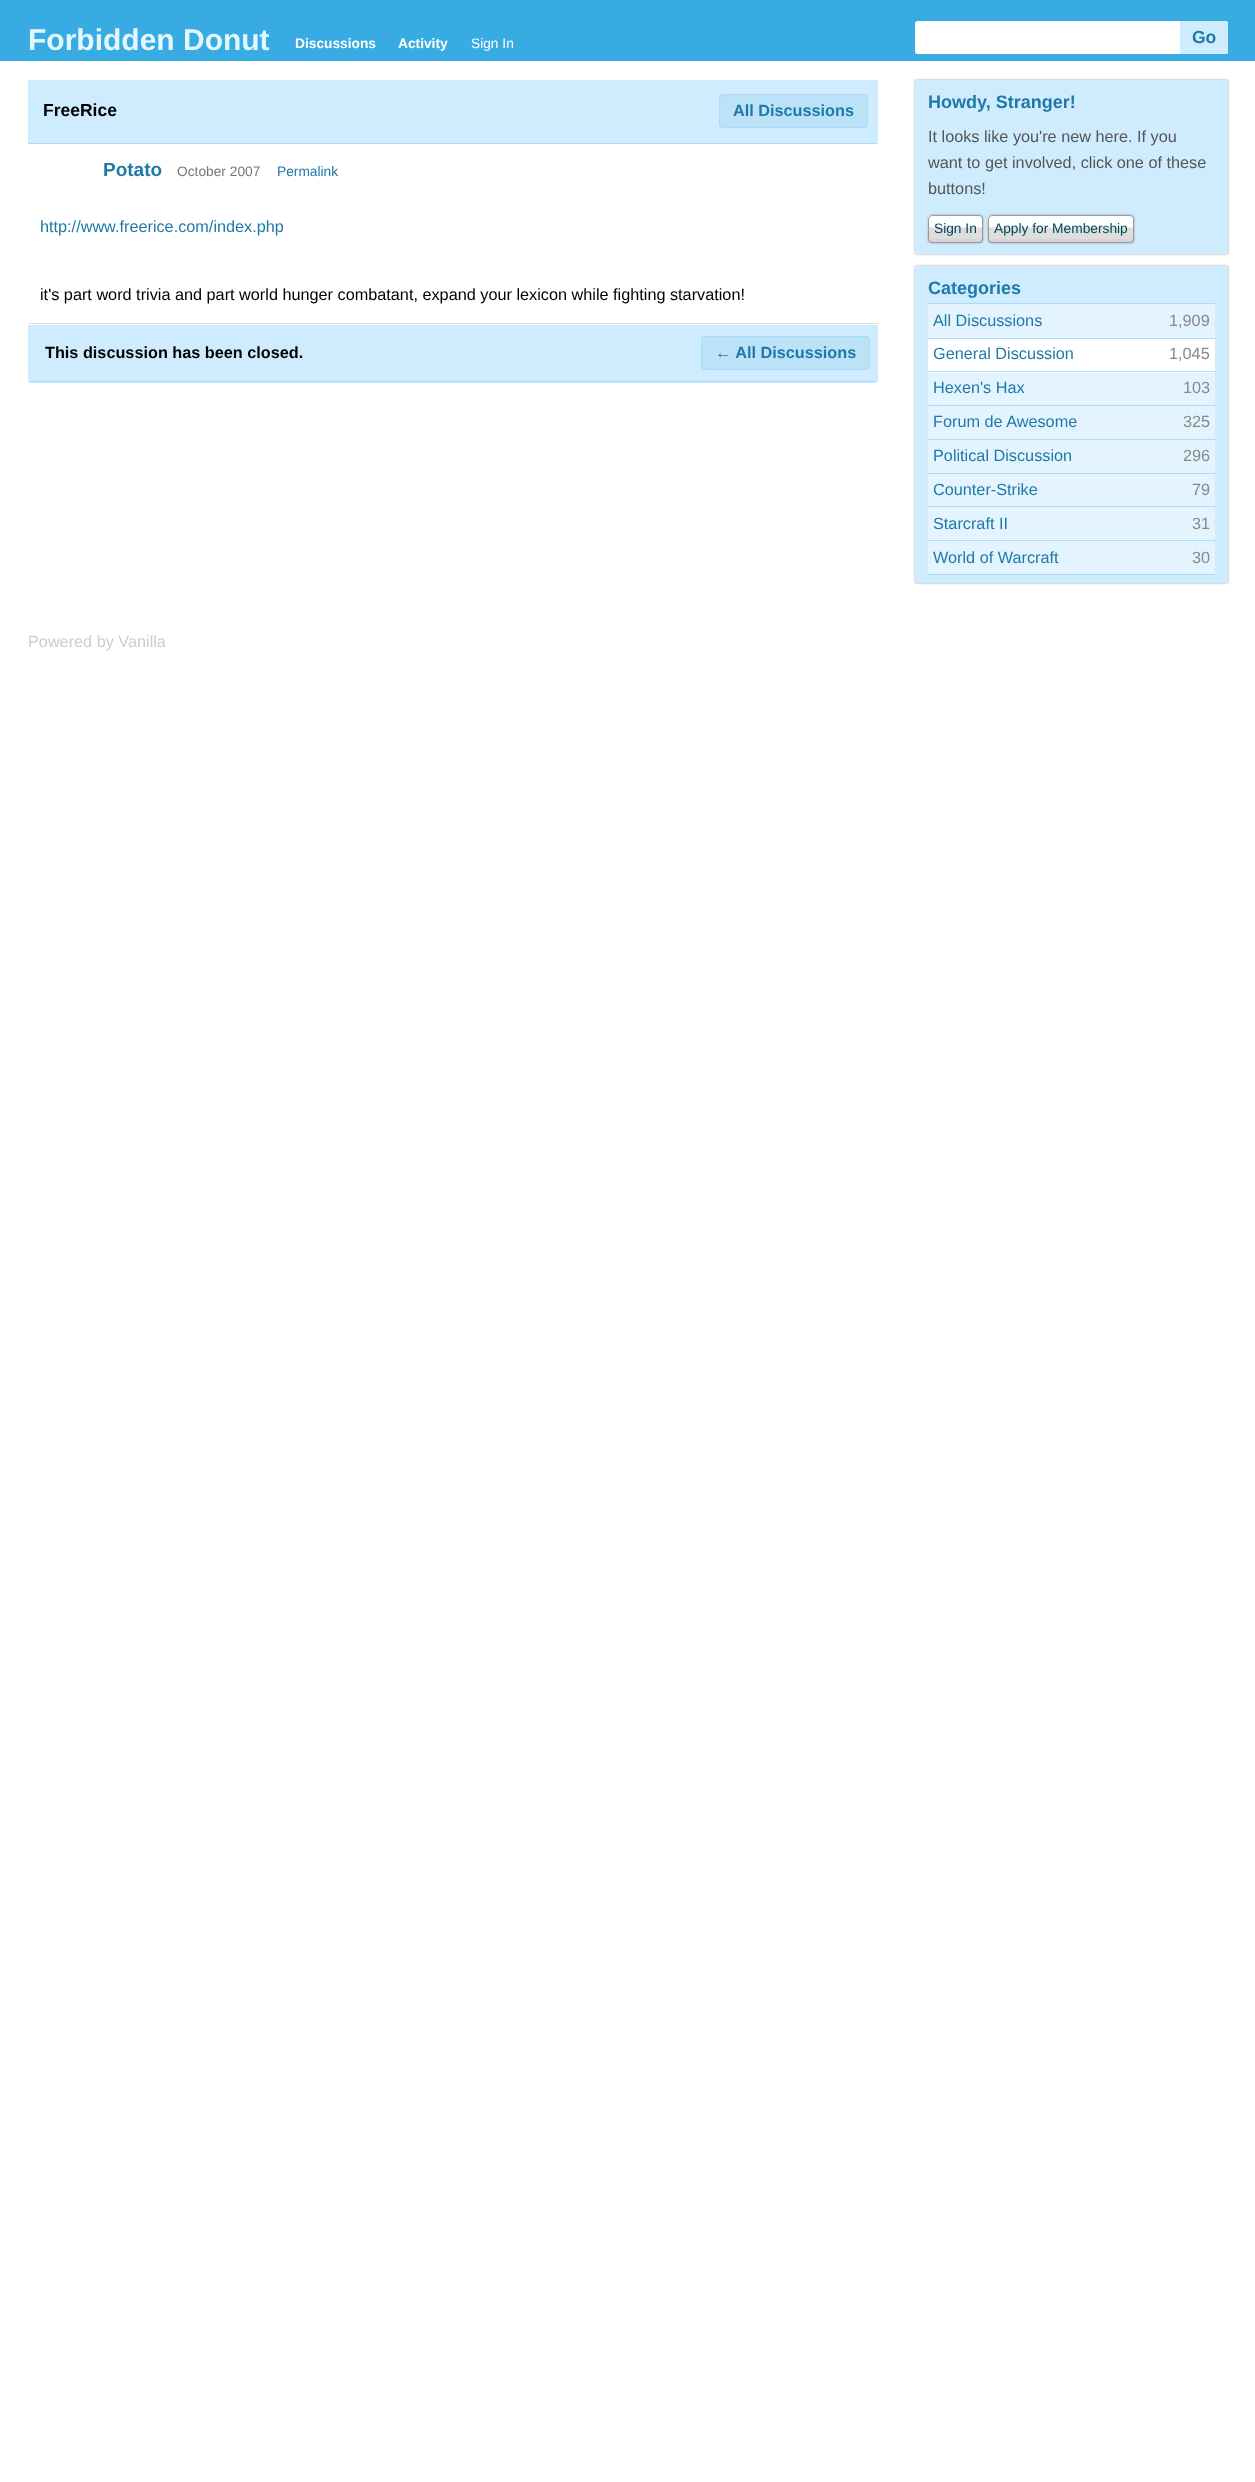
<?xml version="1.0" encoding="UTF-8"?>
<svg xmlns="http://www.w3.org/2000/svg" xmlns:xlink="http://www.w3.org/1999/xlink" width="1255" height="2482">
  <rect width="100%" height="100%" fill="#ffffff" />
  <rect width="1255" height="61" fill="#38abe3" />
  <rect x="915" y="21" width="313" height="33" rx="2.5" fill="#ffffff" />
  <path d="M 1180 21 h 45.5 c 1.5 0 2.5 1 2.5 2.5 v 28 c 0 1.5 -1 2.5 -2.5 2.5 h -45.5 z" fill="#cfecff" />
  <rect x="28" y="80" width="850" height="63" fill="#cfecff" />
  <rect x="28" y="143" width="850" height="1" fill="#abdafb" />
  <rect x="719.5" y="94.5" width="148" height="33" rx="3.5" fill="#bbe2f7" stroke="#abdafb" />
  <rect x="28" y="323" width="850" height="1" fill="#dddddd" />
  <path d="M 28 325 h 850 v 55.5 c 0 1.5 -1 2.5 -2.5 2.5 h -845 c -1.5 0 -2.5 -1 -2.5 -2.5 z" fill="#cfecff" />
  <rect x="29" y="381" width="847" height="1" fill="#abdafb" />
  <rect x="701.5" y="336.5" width="168" height="33" rx="3.5" fill="#bbe2f7" stroke="#abdafb" />
  <rect x="915" y="80" width="313" height="174" rx="1" fill="#999999" filter="blur(1px)" />
  <rect x="915" y="80" width="313" height="174" rx="1" fill="#cfecff" />
  <rect x="928" y="215" width="55" height="28" rx="4" fill="#999999" filter="blur(1px)" />
  <image x="927" y="215" width="56" height="28" xlink:href="image1.png" />
  <rect x="988" y="215" width="146" height="28" rx="4" fill="#999999" filter="blur(1px)" />
  <image x="987" y="215" width="147" height="28" xlink:href="image2.png" />
  <rect x="928.5" y="215.5" width="54" height="27" rx="3.5" fill="none" stroke="#999999" />
  <rect x="988.5" y="215.5" width="145" height="27" rx="3.5" fill="none" stroke="#999999" />
  <rect x="915" y="266" width="313" height="317" rx="1" fill="#999999" filter="blur(1px)" />
  <rect x="915" y="266" width="313" height="317" rx="1" fill="#cfecff" />
  <rect x="928" y="303" width="287" height="1" fill="#abdafb" />
  <rect x="928" y="304" width="287" height="34" fill="#e3f4ff" />
  <rect x="928" y="338" width="287" height="1" fill="#abdafb" />
  <rect x="928" y="339" width="287" height="34" fill="#ffffff" />
  <rect x="928" y="371" width="287" height="1" fill="#a3e6ff" />
  <rect x="928" y="373" width="287" height="32" fill="#e3f4ff" />
  <rect x="928" y="405" width="287" height="1" fill="#abdafb" />
  <rect x="928" y="406" width="287" height="33" fill="#e3f4ff" />
  <rect x="928" y="439" width="287" height="1" fill="#abdafb" />
  <rect x="928" y="440" width="287" height="33" fill="#e3f4ff" />
  <rect x="928" y="473" width="287" height="1" fill="#abdafb" />
  <rect x="928" y="474" width="287" height="66" fill="#e3f4ff" />
  <rect x="928" y="506" width="287" height="1" fill="#abdafb" />
  <rect x="928" y="540" width="287" height="1" fill="#abdafb" />
  <rect x="928" y="541" width="287" height="33" fill="#e3f4ff" />
  <rect x="928" y="574" width="287" height="1" fill="#abdafb" />
  <text x="28" y="50" style="font-family: Liberation Sans; font-size: 30px; font-weight: bold; fill: #e4f7fe">Forbidden Donut</text>
  <text x="295" y="48" style="font-family: Liberation Sans; font-size: 13.75px; font-weight: bold; fill: #ffffff">Discussions</text>
  <text x="398" y="48" style="font-family: Liberation Sans; font-size: 13.75px; font-weight: bold; fill: #ffffff">Activity</text>
  <text x="471" y="48" style="font-family: Liberation Sans; font-size: 13.75px; fill: #ffffff">Sign In</text>
  <text x="1192" y="43" style="font-family: Liberation Sans; font-size: 17.5px; font-weight: bold; fill: #1e79a7">Go</text>
  <text x="43" y="116" style="font-family: Liberation Sans; font-size: 17.5px; font-weight: bold; fill: #000000">FreeRice</text>
  <text x="733" y="116" style="font-family: Liberation Sans; font-size: 16.25px; font-weight: bold; fill: #1e79a7">All Discussions</text>
  <text x="103" y="176" style="font-family: Liberation Sans; font-size: 19px; font-weight: bold; fill: #1e79a7">Potato</text>
  <text x="177" y="176" style="font-family: Liberation Sans; font-size: 13.75px; fill: #777777">October 2007</text>
  <text x="277" y="176" style="font-family: Liberation Sans; font-size: 13.75px; fill: #1e79a7">Permalink</text>
  <text x="40" y="232" style="font-family: Liberation Sans; font-size: 16.25px; fill: #1e79a7">http://www.freerice.com/index.php</text>
  <text x="40" y="300" style="font-family: Liberation Sans; font-size: 16.25px; fill: #000000">it's part word trivia and part world hunger combatant, expand your lexicon while fighting starvation!</text>
  <text x="45" y="358" style="font-family: Liberation Sans; font-size: 16.25px; font-weight: bold; fill: #000000">This discussion has been closed.</text>
  <text x="715" y="358" style="font-family: Liberation Sans; font-size: 16.25px; font-weight: bold; fill: #1e79a7">← All Discussions</text>
  <text x="928" y="108" style="font-family: Liberation Sans; font-size: 18px; font-weight: bold; fill: #1e79a7">Howdy, Stranger!</text>
  <text x="928" y="142" style="font-family: Liberation Sans; font-size: 16.25px; fill: #555555">It looks like you're new here. If you</text>
  <text x="928" y="168" style="font-family: Liberation Sans; font-size: 16.25px; fill: #555555">want to get involved, click one of these</text>
  <text x="928" y="194" style="font-family: Liberation Sans; font-size: 16.25px; fill: #555555">buttons!</text>
  <text x="934" y="233" style="font-family: Liberation Sans; font-size: 13.75px; fill: #02475a">Sign In</text>
  <text x="994" y="233" style="font-family: Liberation Sans; font-size: 13.75px; fill: #02475a">Apply for Membership</text>
  <text x="928" y="294" style="font-family: Liberation Sans; font-size: 18px; font-weight: bold; fill: #1e79a7">Categories</text>
  <text x="933" y="326" style="font-family: Liberation Sans; font-size: 16.25px; fill: #1e79a7">All Discussions</text>
  <text x="1169" y="326" style="font-family: Liberation Sans; font-size: 16.25px; fill: #888888">1,909</text>
  <text x="933" y="359" style="font-family: Liberation Sans; font-size: 16.25px; fill: #1e79a7">General Discussion</text>
  <text x="1169" y="359" style="font-family: Liberation Sans; font-size: 16.25px; fill: #888888">1,045</text>
  <text x="933" y="393" style="font-family: Liberation Sans; font-size: 16.25px; fill: #1e79a7">Hexen's Hax</text>
  <text x="1183" y="393" style="font-family: Liberation Sans; font-size: 16.25px; fill: #888888">103</text>
  <text x="933" y="427" style="font-family: Liberation Sans; font-size: 16.25px; fill: #1e79a7">Forum de Awesome</text>
  <text x="1183" y="427" style="font-family: Liberation Sans; font-size: 16.25px; fill: #888888">325</text>
  <text x="933" y="461" style="font-family: Liberation Sans; font-size: 16.25px; fill: #1e79a7">Political Discussion</text>
  <text x="1183" y="461" style="font-family: Liberation Sans; font-size: 16.25px; fill: #888888">296</text>
  <text x="933" y="495" style="font-family: Liberation Sans; font-size: 16.25px; fill: #1e79a7">Counter-Strike</text>
  <text x="1192" y="495" style="font-family: Liberation Sans; font-size: 16.25px; fill: #888888">79</text>
  <text x="933" y="529" style="font-family: Liberation Sans; font-size: 16.25px; fill: #1e79a7">Starcraft II</text>
  <text x="1192" y="529" style="font-family: Liberation Sans; font-size: 16.25px; fill: #888888">31</text>
  <text x="933" y="563" style="font-family: Liberation Sans; font-size: 16.25px; fill: #1e79a7">World of Warcraft</text>
  <text x="1192" y="563" style="font-family: Liberation Sans; font-size: 16.25px; fill: #888888">30</text>
  <text x="28" y="647" style="font-family: Liberation Sans; font-size: 16.25px; fill: #cccccc">Powered by Vanilla</text>
</svg>
